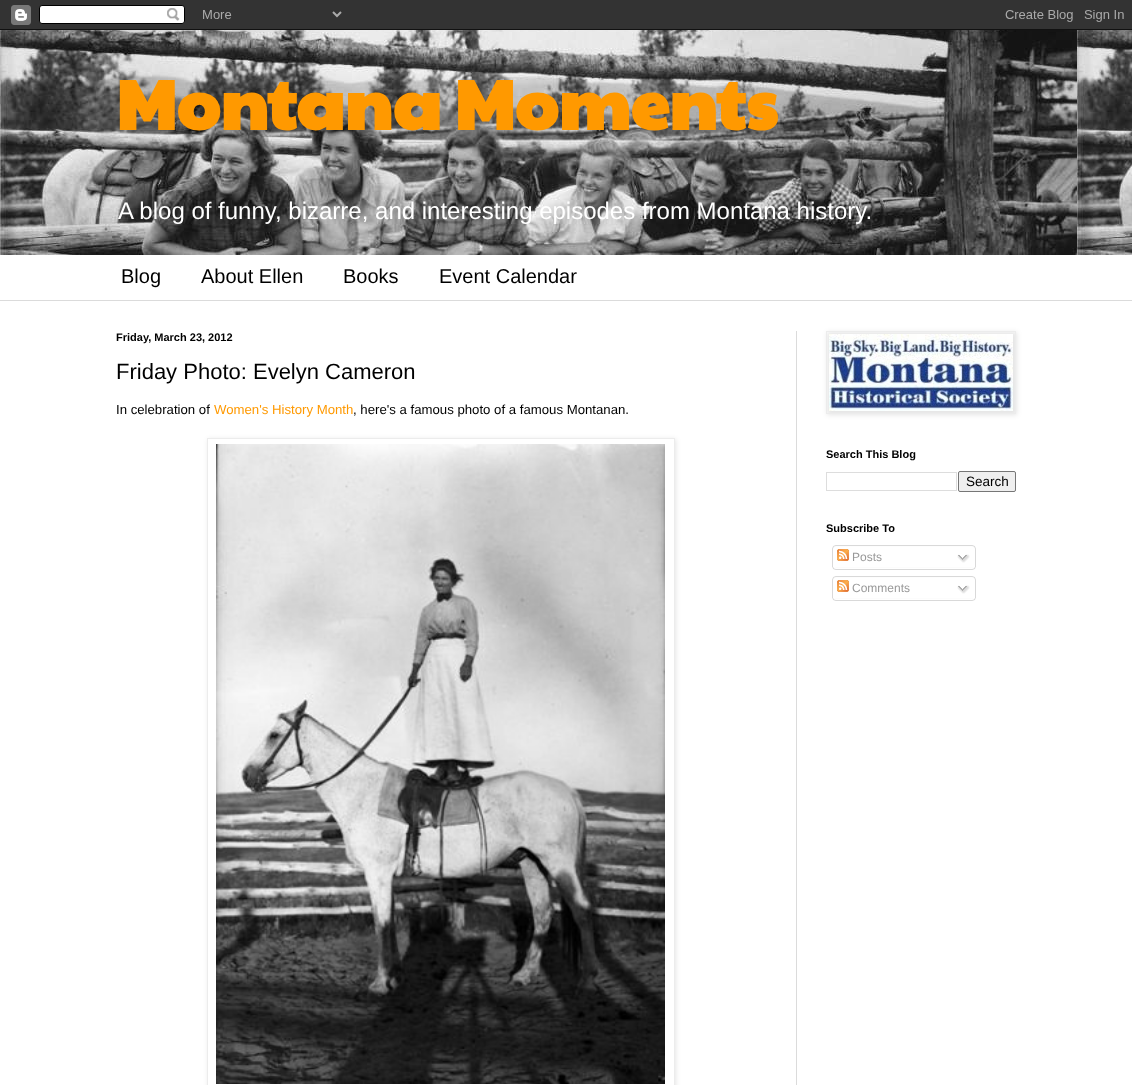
<?xml version="1.0" encoding="UTF-8"?>
<svg xmlns="http://www.w3.org/2000/svg" xmlns:xlink="http://www.w3.org/1999/xlink" width="1132" height="1085">
  <defs>
    <clipPath id="clip1"><path d="M 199 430 h 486 v 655 h -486 z m 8 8 h 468 v 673 h -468 z" clip-rule="evenodd" /></clipPath>
  </defs>
  <rect width="100%" height="100%" fill="#ffffff" />
  <image x="0" y="30" width="1132" height="225" xlink:href="image1.png" />
  <image x="0" y="0" width="1132" height="30" xlink:href="image2.png" />
  <rect y="300" width="1132" height="1" fill="#dbdbdb" />
  <rect x="796" y="331" width="1" height="754" fill="#dbdbdb" />
  <g clip-path="url(#clip1)">
    <rect x="208" y="439" width="468" height="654" fill="#000000" fill-opacity="0.1" filter="blur(2.5px)" />
  </g>
  <rect x="207.5" y="438.5" width="467" height="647" fill="none" stroke="#ececec" />
  <image x="216" y="444" width="449" height="640" xlink:href="image3.png" />
  <rect x="827" y="332" width="190" height="83" fill="#000000" fill-opacity="0.1" filter="blur(2.5px)" />
  <rect x="826.5" y="331.5" width="189" height="82" fill="none" stroke="#ececec" />
  <image x="829" y="334" width="184" height="77" xlink:href="image4.png" />
  <rect x="826.5" y="472.5" width="130" height="18" fill="none" stroke="#dddddd" />
  <rect x="958.5" y="471.5" width="57" height="20" rx="1.5" fill="#efefef" stroke="#767676" />
  <image x="832" y="545" width="144" height="22" xlink:href="image5.png" />
  <image x="837" y="549" width="12" height="12" xlink:href="image6.png" />
  <image x="957" y="554" width="13" height="9" xlink:href="image7.png" />
  <image x="832" y="567" width="144" height="3" xlink:href="image8.png" />
  <image x="832" y="576" width="144" height="22" xlink:href="image5.png" />
  <image x="837" y="580" width="12" height="12" xlink:href="image6.png" />
  <image x="957" y="585" width="13" height="9" xlink:href="image7.png" />
  <image x="832" y="598" width="144" height="3" xlink:href="image8.png" />
  <text x="116" y="130" style="font-family: Paytone One; font-size: 70px; font-weight: bold; fill: #ff9900">Montana Moments</text>
  <text x="118" y="219" style="font-family: Liberation Sans; font-size: 24px; fill: #ffffff">A blog of funny, bizarre, and interesting episodes from Montana history.</text>
  <text x="121" y="283" style="font-family: Liberation Sans; font-size: 20px; fill: #000000">Blog</text>
  <text x="201" y="283" style="font-family: Liberation Sans; font-size: 20px; fill: #000000">About Ellen</text>
  <text x="343" y="283" style="font-family: Liberation Sans; font-size: 20px; fill: #000000">Books</text>
  <text x="439" y="283" style="font-family: Liberation Sans; font-size: 20px; fill: #000000">Event Calendar</text>
  <text x="116" y="341" style="font-family: Liberation Sans; font-size: 11px; font-weight: bold; fill: #000000">Friday, March 23, 2012</text>
  <text x="116" y="379" style="font-family: Liberation Sans; font-size: 22px; fill: #000000">Friday Photo: Evelyn Cameron</text>
  <text x="116" y="414" style="font-family: Liberation Sans; font-size: 13.2px; fill: #000000">In celebration of</text>
  <text x="214" y="414" style="font-family: Liberation Sans; font-size: 13.2px; fill: #ff9900">Women's History Month</text>
  <text x="353" y="414" style="font-family: Liberation Sans; font-size: 13.2px; fill: #000000">, here's a famous photo of a famous Montanan.</text>
  <text x="826" y="458" style="font-family: Liberation Sans; font-size: 11px; font-weight: bold; fill: #000000">Search This Blog</text>
  <text x="966" y="486" style="font-family: Liberation Sans; font-size: 13.5px; fill: #000000">Search</text>
  <text x="826" y="532" style="font-family: Liberation Sans; font-size: 11px; font-weight: bold; fill: #000000">Subscribe To</text>
  <text x="852" y="561" style="font-family: Liberation Sans; font-size: 12px; fill: #999999">Posts</text>
  <text x="852" y="592" style="font-family: Liberation Sans; font-size: 12px; fill: #999999">Comments</text>
</svg>
